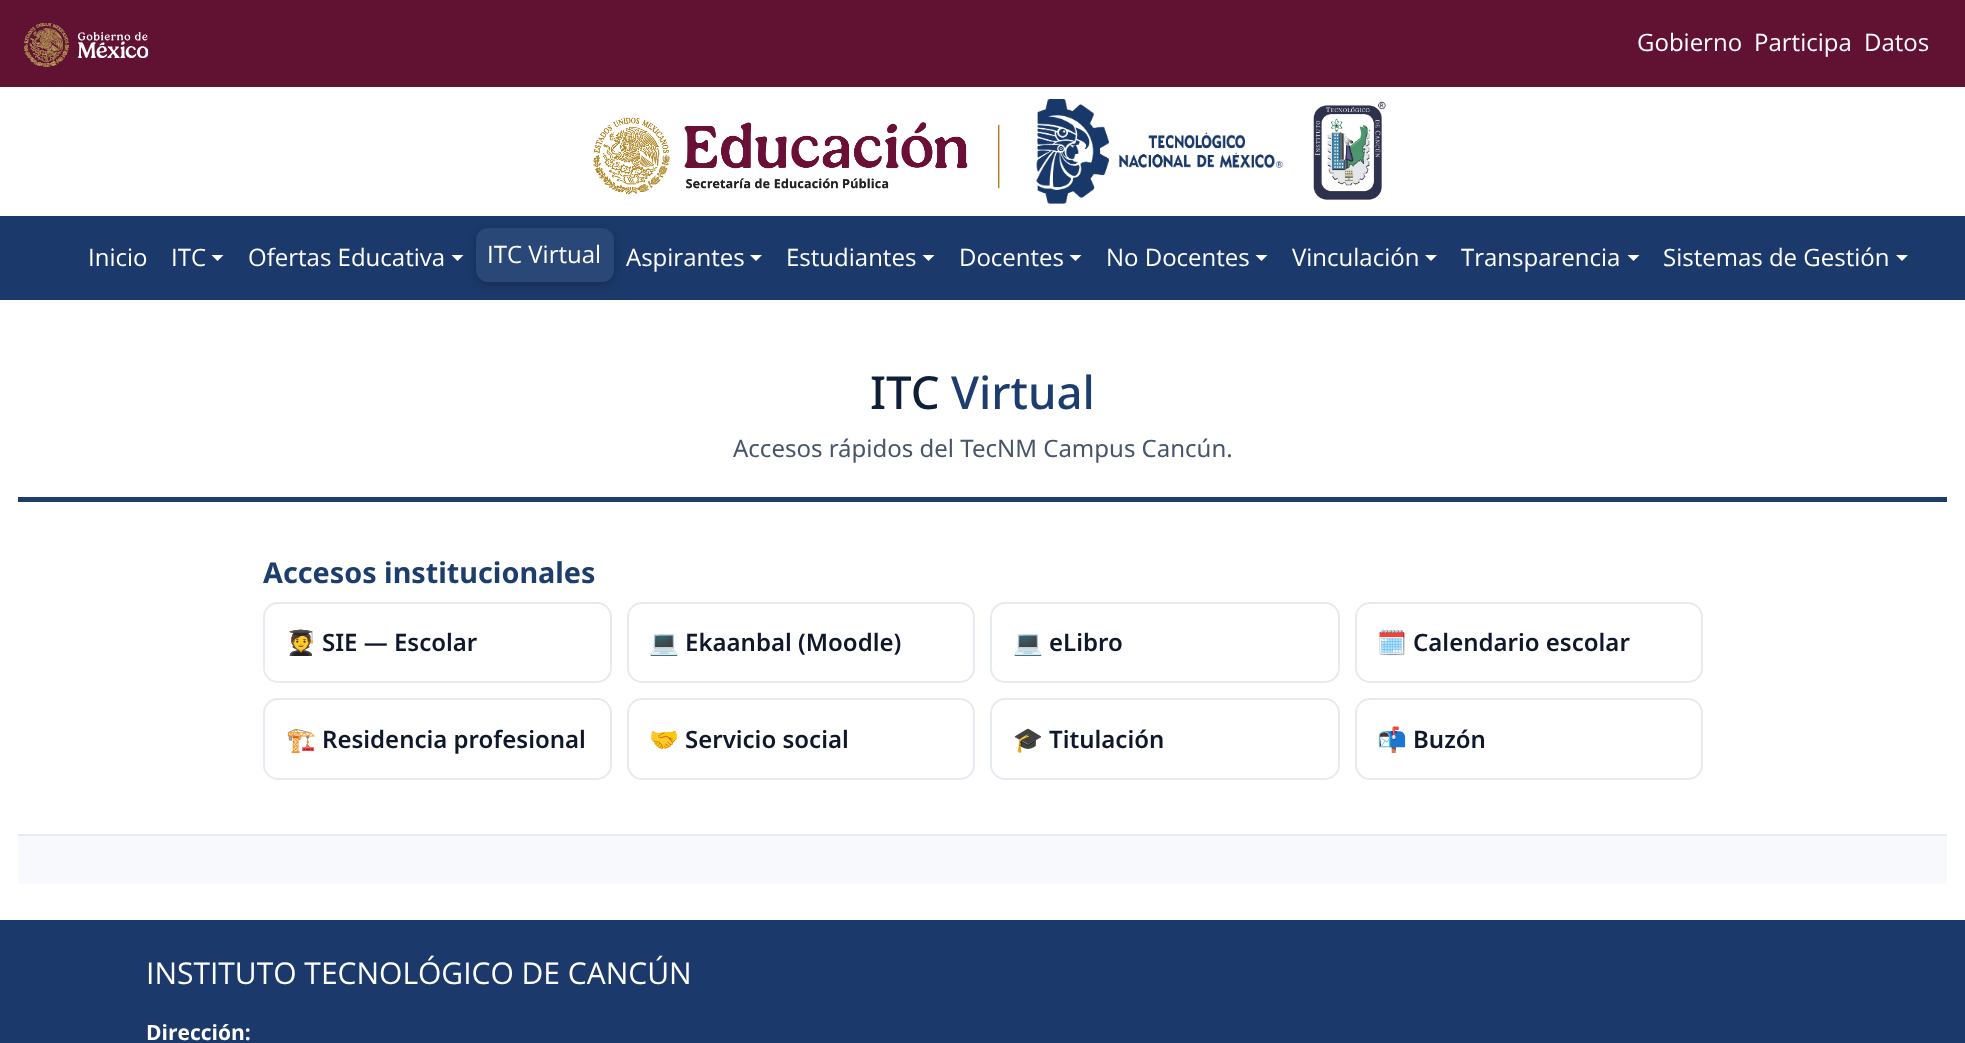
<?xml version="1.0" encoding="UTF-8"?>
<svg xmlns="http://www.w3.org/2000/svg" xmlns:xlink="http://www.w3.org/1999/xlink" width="1965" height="1043">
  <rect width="100%" height="100%" fill="#ffffff" />
  <rect width="1965" height="87" fill="#611232" />
  <image x="24" y="23" width="125" height="45" xlink:href="image1.png" />
  <image x="593" y="117" width="407" height="78" xlink:href="image2.png" />
  <image x="1036" y="99" width="247" height="105" xlink:href="image3.png" />
  <image x="1313" y="101" width="73" height="99" xlink:href="image4.png" />
  <rect y="216" width="1965" height="84" fill="#1b396a" />
  <path d="M 211.5 255 h 12 l -6 6 z" fill="#ffffff" />
  <rect x="476" y="231" width="138" height="54" rx="12" fill="#000000" fill-opacity="0.2" filter="blur(4px)" />
  <path d="M 451.5 255 h 12 l -6 6 z" fill="#ffffff" />
  <rect x="476" y="228" width="138" height="54" rx="12" fill="#294777" />
  <path d="M 750 255 h 12 l -6 6 z" fill="#ffffff" />
  <path d="M 922.5 255 h 12 l -6 6 z" fill="#ffffff" />
  <path d="M 1069.5 255 h 12 l -6 6 z" fill="#ffffff" />
  <path d="M 1255.5 255 h 12 l -6 6 z" fill="#ffffff" />
  <path d="M 1425 255 h 12 l -6 6 z" fill="#ffffff" />
  <path d="M 1627.5 255 h 12 l -6 6 z" fill="#ffffff" />
  <path d="M 1896 255 h 12 l -6 6 z" fill="#ffffff" />
  <rect x="18" y="497" width="1929" height="5" fill="#1c3d6e" />
  <rect x="264" y="603" width="347" height="79" rx="14" fill="none" stroke="#e6ebf2" stroke-width="2" />
  <rect x="628" y="603" width="346" height="79" rx="14" fill="none" stroke="#e6ebf2" stroke-width="2" />
  <rect x="991" y="603" width="348" height="79" rx="14" fill="none" stroke="#e6ebf2" stroke-width="2" />
  <rect x="1356" y="603" width="346" height="79" rx="14" fill="none" stroke="#e6ebf2" stroke-width="2" />
  <rect x="264" y="699" width="347" height="80" rx="14" fill="none" stroke="#e6ebf2" stroke-width="2" />
  <rect x="628" y="699" width="346" height="80" rx="14" fill="none" stroke="#e6ebf2" stroke-width="2" />
  <rect x="991" y="699" width="348" height="80" rx="14" fill="none" stroke="#e6ebf2" stroke-width="2" />
  <rect x="1356" y="699" width="346" height="80" rx="14" fill="none" stroke="#e6ebf2" stroke-width="2" />
  <rect x="18" y="836" width="1929" height="48" fill="#f7f9fc" />
  <rect x="18" y="834" width="1929" height="2" fill="#e6ebf2" />
  <rect y="920" width="1965" height="123" fill="#1b396a" />
  <text x="1637" y="51" style="font-family: Open Sans; font-size: 24px; fill: #ffffff">Gobierno</text>
  <text x="1754" y="51" style="font-family: Open Sans; font-size: 24px; fill: #ffffff">Participa</text>
  <text x="1864" y="51" style="font-family: Open Sans; font-size: 24px; fill: #ffffff">Datos</text>
  <text x="88" y="266" style="font-family: Open Sans; font-size: 24px; fill: #ffffff">Inicio</text>
  <text x="171" y="266" style="font-family: Open Sans; font-size: 24px; fill: #ffffff">ITC</text>
  <text x="248" y="266" style="font-family: Open Sans; font-size: 24px; fill: #ffffff">Ofertas Educativa</text>
  <text x="487" y="263" style="font-family: Open Sans; font-size: 24px; fill: #ffffff">ITC Virtual</text>
  <text x="626" y="266" style="font-family: Open Sans; font-size: 24px; fill: #ffffff">Aspirantes</text>
  <text x="786" y="266" style="font-family: Open Sans; font-size: 24px; fill: #ffffff">Estudiantes</text>
  <text x="959" y="266" style="font-family: Open Sans; font-size: 24px; fill: #ffffff">Docentes</text>
  <text x="1106" y="266" style="font-family: Open Sans; font-size: 24px; fill: #ffffff">No Docentes</text>
  <text x="1292" y="266" style="font-family: Open Sans; font-size: 24px; fill: #ffffff">Vinculación</text>
  <text x="1461" y="266" style="font-family: Open Sans; font-size: 24px; fill: #ffffff">Transparencia</text>
  <text x="1663" y="266" style="font-family: Open Sans; font-size: 24px; fill: #ffffff">Sistemas de Gestión</text>
  <text x="870" y="409" style="font-family: Noto Sans; font-size: 45.5px; font-weight: 500; fill: #0f1f39">ITC</text>
  <text x="951" y="409" style="font-family: Noto Sans; font-size: 45.5px; font-weight: 500; fill: #1c3d6e">Virtual</text>
  <text x="733" y="457" style="font-family: Noto Sans; font-size: 24px; fill: #475569">Accesos rápidos del TecNM Campus Cancún.</text>
  <text x="263" y="583" style="font-family: Noto Sans; font-size: 28.75px; font-weight: bold; fill: #1c3d6e">Accesos institucionales</text>
  <text x="286" y="651" style="font-family: Noto Color Emoji; font-size: 24px; font-weight: bold; fill: #0f172a">🧑‍🎓</text>
  <text x="322" y="651" style="font-family: Noto Sans; font-size: 24px; font-weight: 600; fill: #0f172a">SIE — Escolar</text>
  <text x="649" y="651" style="font-family: Noto Color Emoji; font-size: 24px; font-weight: bold; fill: #0f172a">💻</text>
  <text x="685" y="651" style="font-family: Noto Sans; font-size: 24px; font-weight: 600; fill: #0f172a">Ekaanbal (Moodle)</text>
  <text x="1013" y="651" style="font-family: Noto Color Emoji; font-size: 24px; font-weight: bold; fill: #0f172a">💻</text>
  <text x="1049" y="651" style="font-family: Noto Sans; font-size: 24px; font-weight: 600; fill: #0f172a">eLibro</text>
  <text x="1377" y="651" style="font-family: Noto Color Emoji; font-size: 24px; font-weight: bold; fill: #0f172a">🗓️</text>
  <text x="1413" y="651" style="font-family: Noto Sans; font-size: 24px; font-weight: 600; fill: #0f172a">Calendario escolar</text>
  <text x="286" y="748" style="font-family: Noto Color Emoji; font-size: 24px; font-weight: bold; fill: #0f172a">🏗️</text>
  <text x="322" y="748" style="font-family: Noto Sans; font-size: 24px; font-weight: 600; fill: #0f172a">Residencia profesional</text>
  <text x="649" y="748" style="font-family: Noto Color Emoji; font-size: 24px; font-weight: bold; fill: #0f172a">🤝</text>
  <text x="685" y="748" style="font-family: Noto Sans; font-size: 24px; font-weight: 600; fill: #0f172a">Servicio social</text>
  <text x="1013" y="748" style="font-family: Noto Color Emoji; font-size: 24px; font-weight: bold; fill: #0f172a">🎓</text>
  <text x="1049" y="748" style="font-family: Noto Sans; font-size: 24px; font-weight: 600; fill: #0f172a">Titulación</text>
  <text x="1377" y="748" style="font-family: Noto Color Emoji; font-size: 24px; font-weight: bold; fill: #0f172a">📬</text>
  <text x="1413" y="748" style="font-family: Noto Sans; font-size: 24px; font-weight: 600; fill: #0f172a">Buzón</text>
  <text x="146" y="984" style="font-family: Open Sans; font-size: 30px; fill: #ffffff">INSTITUTO TECNOLÓGICO DE CANCÚN</text>
  <text x="146" y="1040" style="font-family: Open Sans; font-size: 21px; font-weight: bold; fill: #ffffff">Dirección:</text>
</svg>
